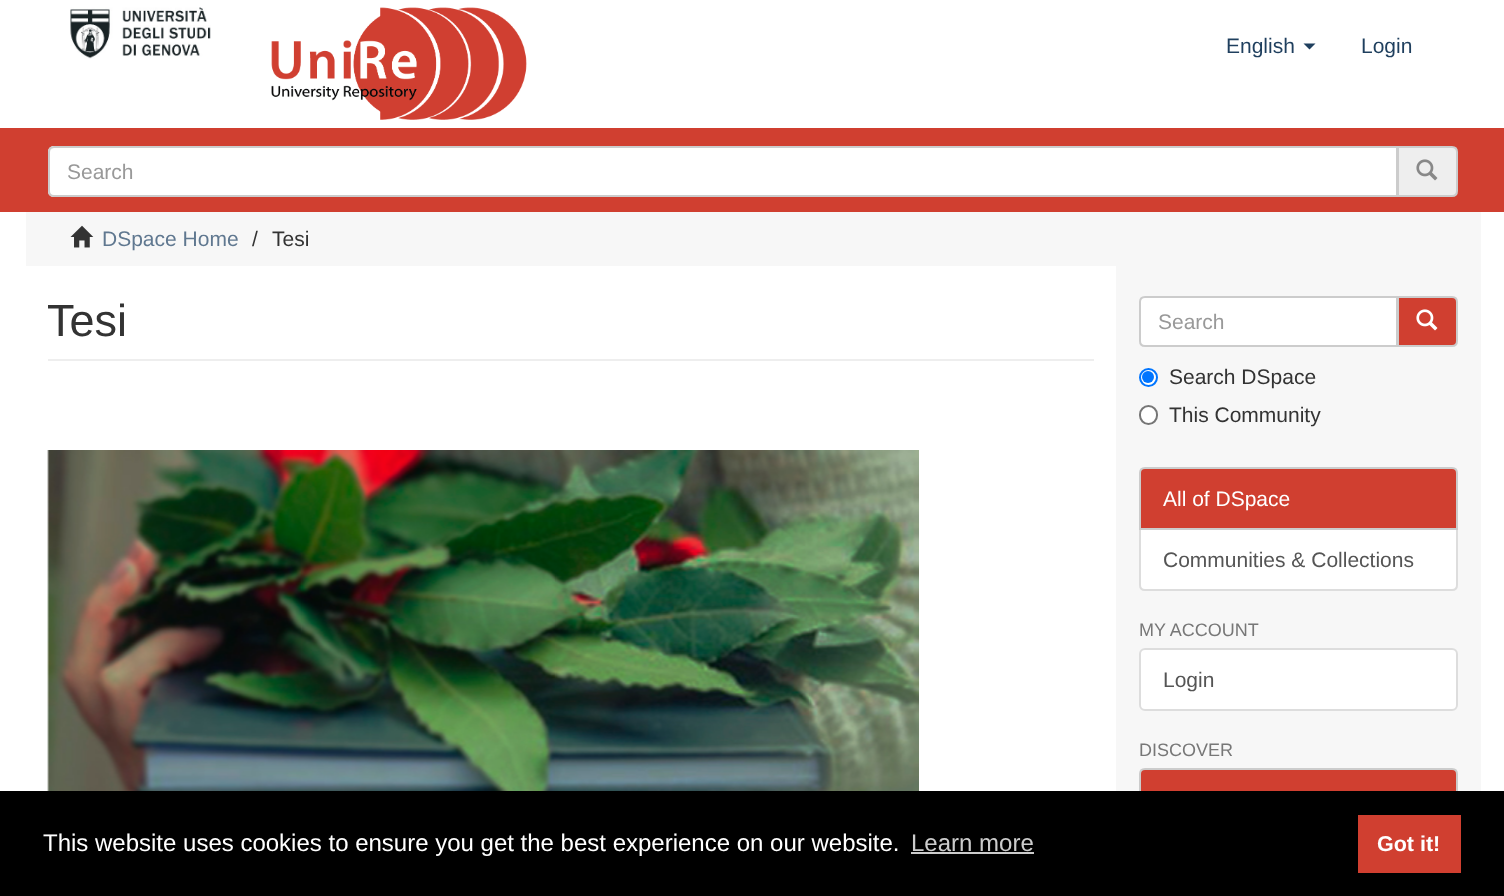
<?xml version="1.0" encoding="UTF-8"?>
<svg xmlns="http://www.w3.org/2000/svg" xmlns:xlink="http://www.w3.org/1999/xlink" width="1504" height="896">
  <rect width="100%" height="100%" fill="#ffffff" />
  <image x="70" y="7" width="141" height="52" xlink:href="image1.png" />
  <image x="271" y="7" width="256" height="113" xlink:href="image2.png" />
  <path d="M 1303.5 43.5 h 12 l -6 6 z" fill="#1f3f5e" />
  <rect y="128" width="1504" height="84" fill="#d03f30" />
  <path d="M 1398 147 h 54 c 3 0 5 2 5 5 v 39 c 0 3 -2 5 -5 5 h -54 z" fill="#eeeeee" stroke="#cccccc" stroke-width="2" />
  <path d="M 54 146 h 1344 v 51 h -1344 c -3.5 0 -6 -2.5 -6 -6 v -39 c 0 -3.5 2.5 -6 6 -6 z" fill="#ffffff" />
  <path d="M 54 148 h 1342 v 47 h 1 v -48 h -1342 c -3 0 -5 3 -5 6 c 0 -2 2 -5 4 -5 z" fill="#ececec" />
  <path d="M 54 147 h 1343 v 49 h -1343 c -3 0 -5 -2 -5 -5 v -39 c 0 -3 2 -5 5 -5 z" fill="none" stroke="#cccccc" stroke-width="2" />
  <image x="1416" y="159" width="22" height="22" xlink:href="image3.png" />
  <rect x="26" y="212" width="1455" height="54" fill="#f7f7f7" />
  <image x="70" y="225" width="24" height="23" xlink:href="image4.png" />
  <rect x="1116" y="266" width="365" height="525" fill="#f7f7f7" />
  <rect x="48" y="359" width="1046" height="2" fill="#eeeeee" />
  <image x="47" y="450" width="872" height="341" xlink:href="image5.png" />
  <path d="M 1398 297 h 54 c 3 0 5 2 5 5 v 39 c 0 3 -2 5 -5 5 h -54 z" fill="#d03f30" stroke="#cccccc" stroke-width="2" />
  <path d="M 1145 297 h 252 v 49 h -252 c -3 0 -5 -2 -5 -5 v -39 c 0 -3 2 -5 5 -5 z" fill="#ffffff" stroke="#cccccc" stroke-width="2" />
  <image x="1416" y="309" width="22" height="22" xlink:href="image6.png" />
  <circle cx="1148.5" cy="377.5" r="8.5" fill="#ffffff" stroke="#0075ff" stroke-width="2" />
  <circle cx="1148" cy="377" r="6" fill="#0075ff" />
  <rect x="1140" y="406" width="17" height="18" rx="8.5" fill="#ffffff" stroke="#767676" stroke-width="2" />
  <path d="M 1140 529 h 317 v 56 c 0 3 -2 5 -5 5 h -307 c -3 0 -5 -2 -5 -5 z" fill="#ffffff" stroke="#dddddd" stroke-width="2" />
  <path d="M 1145 468 h 307 c 3 0 5 2 5 5 v 56 h -317 v -56 c 0 -3 2 -5 5 -5 z" fill="#d03f30" stroke="#cccccc" stroke-width="2" />
  <rect x="1140" y="649" width="317" height="61" rx="5" fill="#ffffff" stroke="#dddddd" stroke-width="2" />
  <path d="M 1145 769 h 307 c 3 0 5 2 5 5 v 56 h -317 v -56 c 0 -3 2 -5 5 -5 z" fill="#d03f30" stroke="#cccccc" stroke-width="2" />
  <rect y="791" width="1504" height="105" fill="#000000" />
  <rect x="911" y="852" width="123" height="2" fill="#cccccc" />
  <rect x="1358" y="815" width="103" height="58" fill="#d03f30" />
  <text x="1226" y="53" style="font-family: Liberation Sans; font-size: 21px; fill: #1f3f5e">English</text>
  <text x="1361" y="53" style="font-family: Liberation Sans; font-size: 21px; fill: #1f3f5e">Login</text>
  <text x="67" y="179" style="font-family: Liberation Sans; font-size: 21px; fill: #999999">Search</text>
  <text x="102" y="246" style="font-family: Liberation Sans; font-size: 21px; fill: #607890">DSpace Home</text>
  <text x="252" y="246" style="font-family: Liberation Sans; font-size: 21px; fill: #333333">/</text>
  <text x="272" y="246" style="font-family: Liberation Sans; font-size: 21px; fill: #333333">Tesi</text>
  <text x="47" y="336" style="font-family: Liberation Sans; font-size: 45px; fill: #333333">Tesi</text>
  <text x="1158" y="329" style="font-family: Liberation Sans; font-size: 21px; fill: #999999">Search</text>
  <text x="1169" y="384" style="font-family: Liberation Sans; font-size: 21px; fill: #333333">Search DSpace</text>
  <text x="1169" y="422" style="font-family: Liberation Sans; font-size: 21px; fill: #333333">This Community</text>
  <text x="1163" y="506" style="font-family: Liberation Sans; font-size: 21px; fill: #ffffff">All of DSpace</text>
  <text x="1163" y="567" style="font-family: Liberation Sans; font-size: 21px; fill: #555555">Communities &amp; Collections</text>
  <text x="1139" y="636" style="font-family: Liberation Sans; font-size: 18px; fill: #777777">MY ACCOUNT</text>
  <text x="1163" y="687" style="font-family: Liberation Sans; font-size: 21px; fill: #555555">Login</text>
  <text x="1139" y="756" style="font-family: Liberation Sans; font-size: 18px; fill: #777777">DISCOVER</text>
  <text x="43" y="851" style="font-family: Liberation Sans; font-size: 24px; fill: #ffffff">This website uses cookies to ensure you get the best experience on our website.</text>
  <text x="911" y="851" style="font-family: Liberation Sans; font-size: 24px; fill: #cccccc">Learn more</text>
  <text x="1377" y="851" style="font-family: Liberation Sans; font-size: 21.5px; font-weight: bold; fill: #ffffff">Got it!</text>
</svg>
